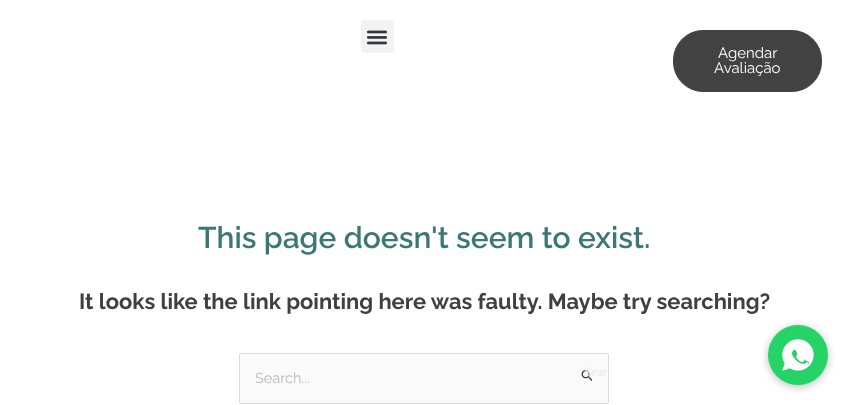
<?xml version="1.0" encoding="UTF-8"?>
<svg xmlns="http://www.w3.org/2000/svg" xmlns:xlink="http://www.w3.org/1999/xlink" width="848" height="405">
  <rect width="100%" height="100%" fill="#ffffff" />
  <rect x="361" y="20" width="33" height="33" rx="3" fill="#f2f2f2" />
  <image x="366" y="30" width="22" height="15" xlink:href="image1.png" />
  <rect x="673.5" y="30.5" width="148" height="61" rx="29.5" fill="#424242" stroke="#424242" />
  <rect x="239.5" y="353.5" width="369" height="50" rx="1.5" fill="#fafafa" stroke="#dddddd" />
  <image x="581" y="370" width="11" height="11" xlink:href="image2.png" />
  <rect x="768" y="327" width="60" height="60" rx="30" fill="#000000" fill-opacity="0.25" filter="blur(4px)" />
  <circle cx="798" cy="355" r="30" fill="#25d366" />
  <image x="782" y="339" width="32" height="32" xlink:href="image3.png" />
  <text x="718" y="58" style="font-family: Raleway; font-size: 15px; fill: #ffffff">Agendar</text>
  <text x="714" y="73" style="font-family: Raleway; font-size: 15px; fill: #ffffff">Avaliação</text>
  <text x="198" y="248" style="font-family: Raleway; font-size: 30px; font-weight: 600; fill: #3b7777">This page doesn't seem to exist.</text>
  <text x="79" y="309" style="font-family: Raleway; font-size: 21.9px; font-weight: bold; fill: #404040">It looks like the link pointing here was faulty. Maybe try searching?</text>
  <text x="255" y="383" style="font-family: Raleway; font-size: 14.5px; fill: #b8b8b8">Search...</text>
  <text x="584" y="376" style="font-family: Liberation Serif; font-size: 13px; fill: #e9e9e9">Sear</text>
</svg>
